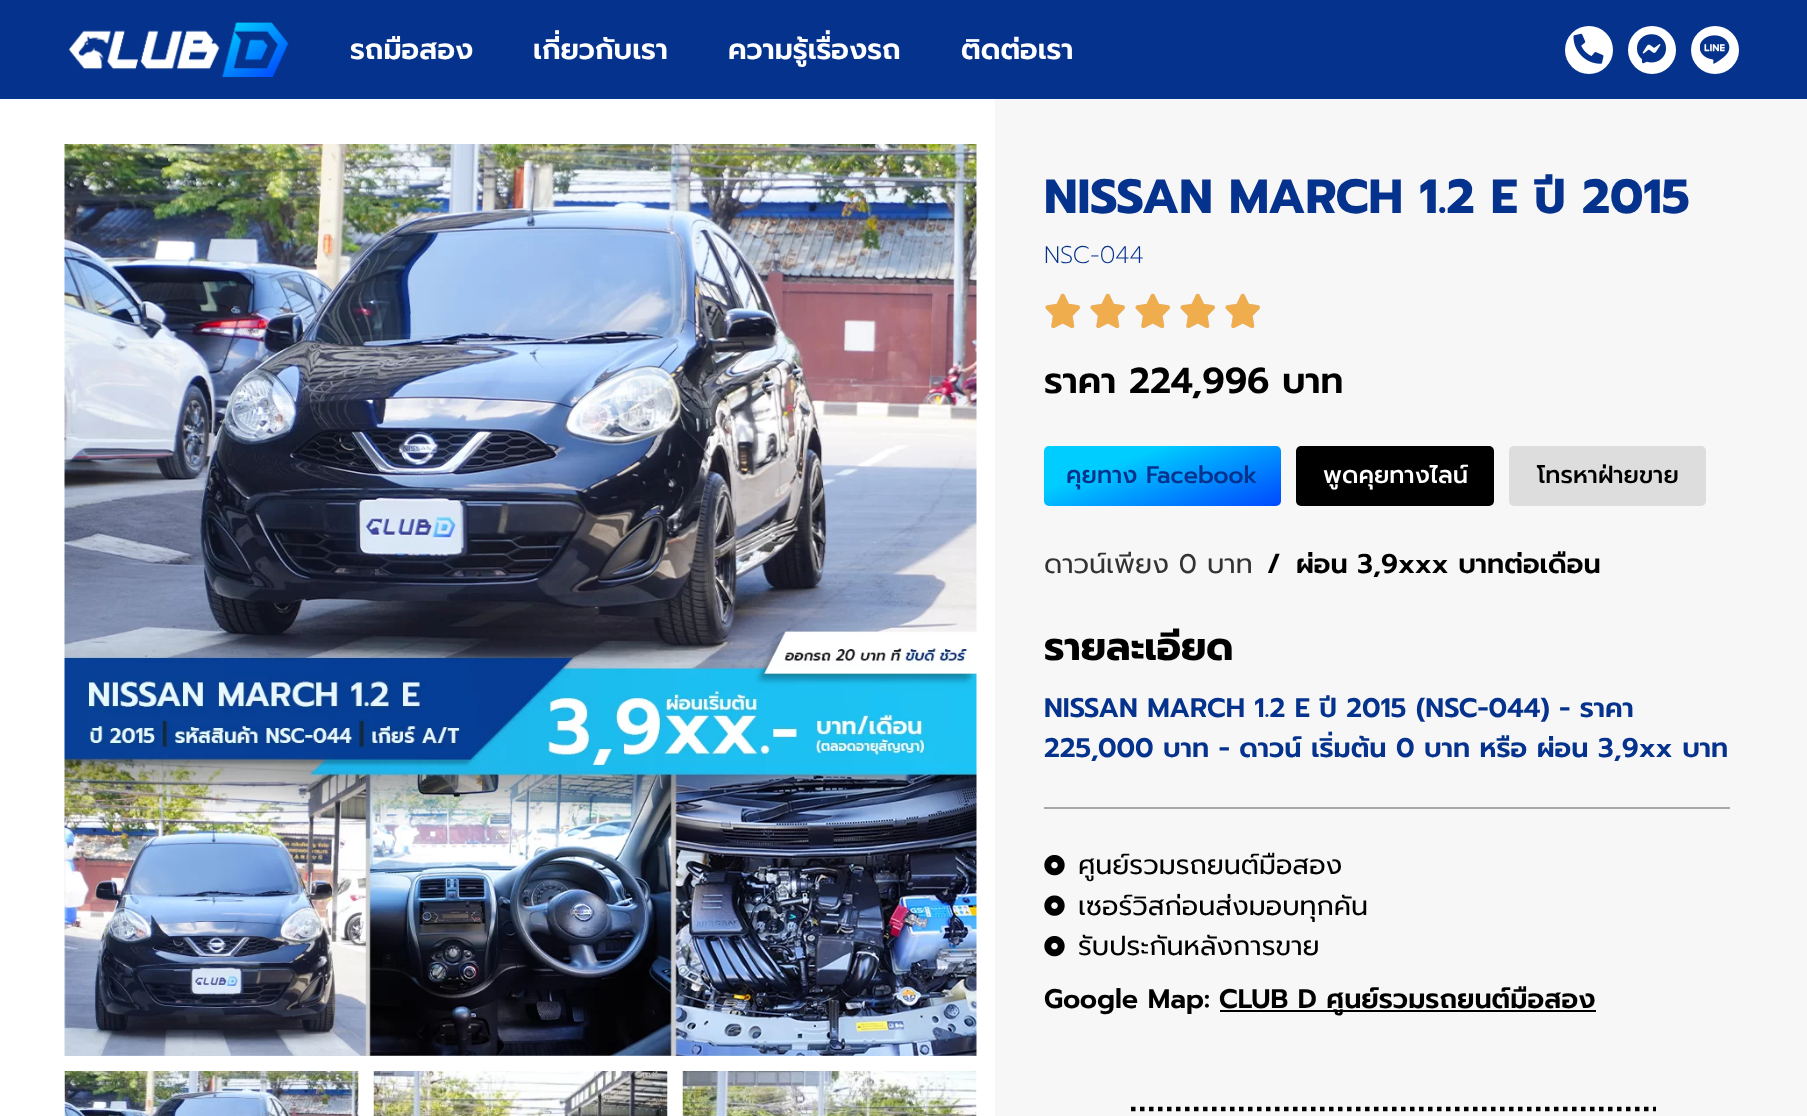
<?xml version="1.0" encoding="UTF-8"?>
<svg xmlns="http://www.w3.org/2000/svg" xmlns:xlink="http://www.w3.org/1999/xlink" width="1807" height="1116">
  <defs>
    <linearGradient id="g1" gradientUnits="userSpaceOnUse" x1="1139" y1="411" x2="1186" y2="540"><stop offset="0.3" stop-color="#00cdff" /><stop offset="1" stop-color="#0048ff" /></linearGradient>
  </defs>
  <rect width="100%" height="100%" fill="#ffffff" />
  <rect width="1807" height="99" fill="#05328c" />
  <image x="68" y="22" width="221" height="56" xlink:href="image1.png" />
  <circle cx="1589" cy="50" r="24" fill="#ffffff" />
  <image x="1573" y="33" width="31" height="31" xlink:href="image2.png" />
  <circle cx="1652" cy="50" r="24" fill="#ffffff" />
  <image x="1637" y="34" width="29" height="30" xlink:href="image3.png" />
  <circle cx="1715" cy="50" r="24" fill="#ffffff" />
  <image x="1700" y="35" width="30" height="29" xlink:href="image4.png" />
  <rect x="995" y="99" width="812" height="1017" fill="#f7f7f7" />
  <image x="64" y="144" width="913" height="912" xlink:href="image5.png" />
  <image x="64" y="1071" width="295" height="45" xlink:href="image6.png" />
  <image x="373" y="1071" width="295" height="45" xlink:href="image7.png" />
  <image x="682" y="1071" width="295" height="45" xlink:href="image8.png" />
  <image x="1045" y="293" width="35" height="35" xlink:href="image9.png" />
  <image x="1045" y="293" width="35" height="36" xlink:href="image10.png" />
  <image x="1090" y="293" width="35" height="35" xlink:href="image9.png" />
  <image x="1090" y="293" width="35" height="36" xlink:href="image10.png" />
  <image x="1135" y="293" width="35" height="35" xlink:href="image9.png" />
  <image x="1135" y="293" width="35" height="36" xlink:href="image10.png" />
  <image x="1180" y="293" width="35" height="35" xlink:href="image9.png" />
  <image x="1180" y="293" width="35" height="36" xlink:href="image10.png" />
  <image x="1225" y="293" width="35" height="35" xlink:href="image9.png" />
  <image x="1225" y="293" width="35" height="36" xlink:href="image10.png" />
  <rect x="1044" y="446" width="237" height="60" rx="5" fill="url(#g1)" />
  <rect x="1296" y="446" width="198" height="60" rx="5" fill="#000000" />
  <rect x="1509" y="446" width="197" height="60" rx="5" fill="#dddddd" />
  <rect x="1044" y="807" width="686" height="2" fill="#a8a8a8" />
  <image x="1044" y="855" width="21" height="21" xlink:href="image11.png" />
  <image x="1044" y="895" width="21" height="21" xlink:href="image12.png" />
  <image x="1044" y="936" width="21" height="21" xlink:href="image11.png" />
  <rect x="1220" y="1010" width="376" height="2" fill="#000000" />
  <path d="M 1131 1109 h 525" fill="none" stroke="#000000" stroke-width="4.5" stroke-dasharray="4.5 4.5" />
  <text x="350" y="59" style="font-family: Prompt; font-size: 28.5px; font-weight: 600; fill: #ffffff">รถมือสอง</text>
  <text x="533" y="59" style="font-family: Prompt; font-size: 28.5px; font-weight: 600; fill: #ffffff">เกี่ยวกับเรา</text>
  <text x="728" y="59" style="font-family: Prompt; font-size: 28.5px; font-weight: 600; fill: #ffffff">ความรู้เรื่องรถ</text>
  <text x="961" y="59" style="font-family: Prompt; font-size: 28.5px; font-weight: 600; fill: #ffffff">ติดต่อเรา</text>
  <text x="1044" y="213" style="font-family: Prompt; font-size: 48px; font-weight: bold; fill: #05328c">NISSAN MARCH 1.2 E ปี 2015</text>
  <text x="1044" y="263" style="font-family: Prompt; font-size: 24px; font-weight: 200; fill: #05328c">NSC-044</text>
  <text x="1044" y="393" style="font-family: Prompt; font-size: 36px; font-weight: 600; fill: #000000">ราคา 224,996 บาท</text>
  <text x="1066" y="483" style="font-family: Prompt; font-size: 24px; font-weight: 500; fill: #05328c">คุยทาง Facebook</text>
  <text x="1323" y="483" style="font-family: Prompt; font-size: 24px; font-weight: 500; fill: #ffffff">พูดคุยทางไลน์</text>
  <text x="1537" y="483" style="font-family: Prompt; font-size: 24px; font-weight: 500; fill: #000000">โทรหาฝ่ายขาย</text>
  <text x="1044" y="573" style="font-family: Prompt; font-size: 27px; fill: #333333">ดาวน์เพียง 0 บาท</text>
  <text x="1267" y="573" style="font-family: Prompt; font-size: 27px; font-weight: 600; fill: #000000">/</text>
  <text x="1296" y="573" style="font-family: Prompt; font-size: 27px; font-weight: 600; fill: #000000">ผ่อน 3,9xxx บาทต่อเดือน</text>
  <text x="1044" y="660" style="font-family: Prompt; font-size: 39px; font-weight: bold; fill: #000000">รายละเอียด</text>
  <text x="1044" y="717" style="font-family: Prompt; font-size: 27px; font-weight: 600; fill: #05328c">NISSAN MARCH 1.2 E ปี 2015 (NSC-044) - ราคา</text>
  <text x="1044" y="757" style="font-family: Prompt; font-size: 27px; font-weight: 600; fill: #05328c">225,000 บาท - ดาวน์ เริ่มต้น 0 บาท หรือ ผ่อน 3,9xx บาท</text>
  <text x="1078" y="874" style="font-family: Prompt; font-size: 27px; fill: #000000">ศูนย์รวมรถยนต์มือสอง</text>
  <text x="1078" y="915" style="font-family: Prompt; font-size: 27px; fill: #000000">เซอร์วิสก่อนส่งมอบทุกคัน</text>
  <text x="1078" y="955" style="font-family: Prompt; font-size: 27px; fill: #000000">รับประกันหลังการขาย</text>
  <text x="1044" y="1008" style="font-family: Prompt; font-size: 27px; font-weight: 600; fill: #000000">Google Map:</text>
  <text x="1219" y="1008" style="font-family: Prompt; font-size: 27px; font-weight: 600; fill: #000000">CLUB D ศูนย์รวมรถยนต์มือสอง</text>
</svg>
